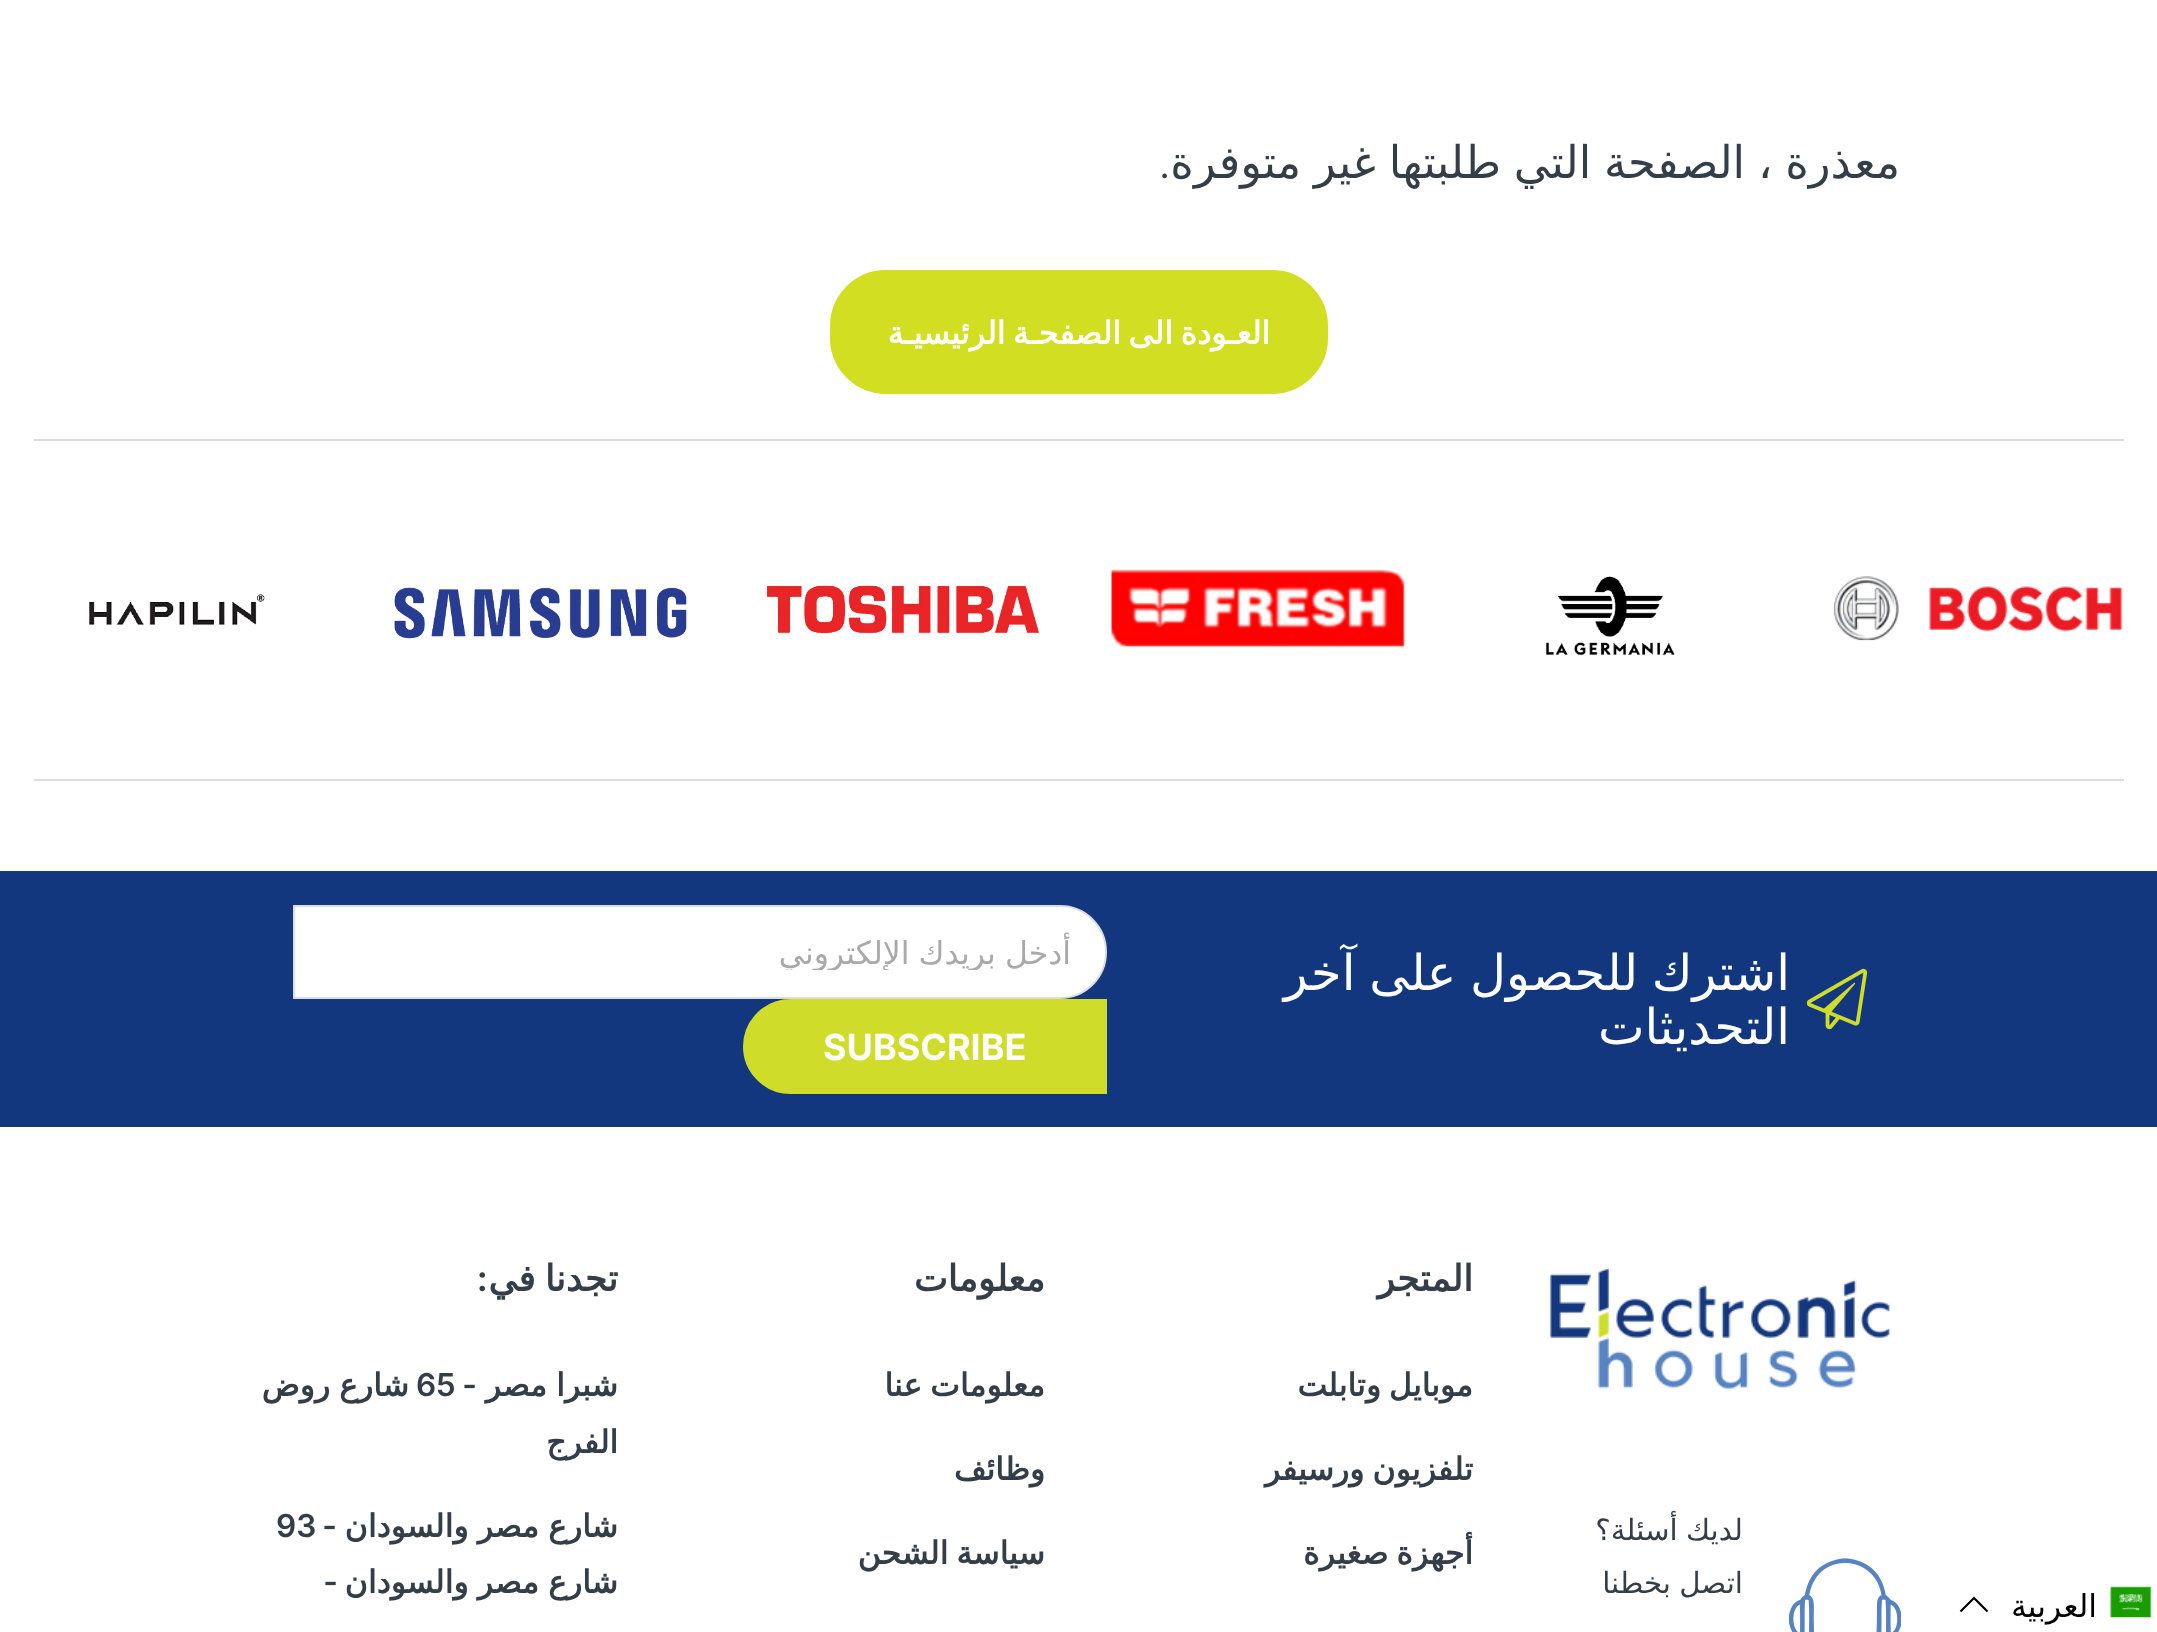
<?xml version="1.0" encoding="UTF-8"?>
<svg xmlns="http://www.w3.org/2000/svg" xmlns:xlink="http://www.w3.org/1999/xlink" width="2157" height="1632">
  <defs>
    <clipPath id="clip1"><rect x="329" y="932" width="742" height="38" /></clipPath>
  </defs>
  <rect width="100%" height="100%" fill="#ffffff" />
  <rect x="831" y="271" width="496" height="122" rx="55" fill="#d1de21" stroke="#d1de21" stroke-width="2" />
  <rect x="34" y="439" width="2090" height="2" fill="#dddddd" />
  <rect x="34" y="779" width="2090" height="2" fill="#dddddd" />
  <image x="1833" y="576" width="290" height="65" xlink:href="image1.png" />
  <image x="1545" y="576" width="130" height="80" xlink:href="image2.png" />
  <image x="1111" y="569" width="295" height="79" xlink:href="image3.png" />
  <image x="767" y="585" width="272" height="49" xlink:href="image4.png" />
  <image x="394" y="587" width="293" height="52" xlink:href="image5.png" />
  <image x="89" y="594" width="176" height="31" xlink:href="image6.png" />
  <rect y="871" width="2157" height="256" fill="#13377e" />
  <image x="1807" y="968" width="61" height="62" xlink:href="image7.png" />
  <path d="M 294 906 h 766 c 25.5 0 46 20.5 46 46 c 0 25.5 -20.5 46 -46 46 h -766 z" fill="#ffffff" stroke="#dddddd" stroke-width="2" />
  <path d="M 790.5 1000 h 315.5 v 93 h -315.5 c -25.5 0 -46.5 -21 -46.5 -46.5 c 0 -25.5 21 -46.5 46.5 -46.5 z" fill="#cfdc2a" stroke="#cfdc2a" stroke-width="2" />
  <image x="1550" y="1267" width="340" height="122" xlink:href="image8.png" />
  <image x="1789" y="1558" width="112" height="74" xlink:href="image9.png" />
  <image x="2110" y="1586" width="42" height="32" xlink:href="image10.png" />
  <path d="M 1987.5 1611.5 l -13.5 -13.5 l -13.5 13.5" fill="none" stroke="#000000" stroke-width="2.2" />
  <text x="1900" y="178" word-spacing="-1.5" style="font-family: DejaVu Sans; font-size: 45px; direction: rtl; fill: #333e48">معذرة ، الصفحة التي طلبتها غير متوفرة</text>
  <text x="1171" y="178" style="font-family: Inter; font-size: 45px; font-weight: 300; direction: rtl; fill: #333e48">.</text>
  <text x="1270" y="344" word-spacing="-2.5" style="font-family: DejaVu Sans; font-size: 31.5px; font-weight: bold; direction: rtl; fill: #ffffff">العـودة الى الصفحـة الرئيسيـة</text>
  <text x="1790" y="990" word-spacing="-2" style="font-family: DejaVu Sans; font-size: 49.5px; direction: rtl; fill: #ffffff">اشترك للحصول على آخر</text>
  <text x="1790" y="1044" style="font-family: DejaVu Sans; font-size: 49.5px; direction: rtl; fill: #ffffff">التحديثات</text>
  <g clip-path="url(#clip1)">
    <text x="1071" y="964" word-spacing="-1" style="font-family: DejaVu Sans; font-size: 31.5px; direction: rtl; fill: #a9a9a9">أدخل بريدك الإلكتروني</text>
  </g>
  <text x="823" y="1060" style="font-family: Inter; font-size: 36px; font-weight: bold; fill: #ffffff">SUBSCRIBE</text>
  <text x="1743" y="1540" word-spacing="-1" style="font-family: DejaVu Sans; font-size: 29.25px; direction: rtl; fill: #333e48">لديك أسئلة؟</text>
  <text x="1743" y="1593" word-spacing="-1" style="font-family: DejaVu Sans; font-size: 29.25px; direction: rtl; fill: #333e48">اتصل بخطنا</text>
  <text x="1473" y="1291" style="font-family: DejaVu Sans; font-size: 36px; font-weight: bold; direction: rtl; fill: #333e48">المتجر</text>
  <text x="1473" y="1396" word-spacing="-2" style="font-family: DejaVu Sans; font-size: 31.5px; font-weight: bold; direction: rtl; fill: #333e48">موبايل وتابلت</text>
  <text x="1473" y="1480" word-spacing="-2" style="font-family: DejaVu Sans; font-size: 31.5px; font-weight: bold; direction: rtl; fill: #333e48">تلفزيون ورسيفر</text>
  <text x="1473" y="1564" word-spacing="-2" style="font-family: DejaVu Sans; font-size: 31.5px; font-weight: bold; direction: rtl; fill: #333e48">أجهزة صغيرة</text>
  <text x="1045" y="1291" style="font-family: DejaVu Sans; font-size: 36px; font-weight: bold; direction: rtl; fill: #333e48">معلومات</text>
  <text x="1045" y="1396" word-spacing="-2" style="font-family: DejaVu Sans; font-size: 31.5px; font-weight: bold; direction: rtl; fill: #333e48">معلومات عنا</text>
  <text x="1045" y="1480" style="font-family: DejaVu Sans; font-size: 31.5px; font-weight: bold; direction: rtl; fill: #333e48">وظائف</text>
  <text x="1045" y="1564" word-spacing="-2" style="font-family: DejaVu Sans; font-size: 31.5px; font-weight: bold; direction: rtl; fill: #333e48">سياسة الشحن</text>
  <text x="618" y="1291" word-spacing="-2" style="font-family: DejaVu Sans; font-size: 36px; font-weight: bold; direction: rtl; fill: #333e48">تجدنا في</text>
  <text x="488" y="1291" style="font-family: Inter; font-size: 36px; font-weight: 600; direction: rtl; fill: #333e48">:</text>
  <text x="618" y="1396" word-spacing="-1" style="font-family: DejaVu Sans; font-size: 31.5px; font-weight: bold; direction: rtl; fill: #333e48">شبرا مصر</text>
  <text x="477" y="1396" style="font-family: Inter; font-size: 31.5px; font-weight: 600; direction: rtl; fill: #333e48">-</text>
  <text x="416" y="1396" style="font-family: Inter; font-size: 31.5px; font-weight: 600; fill: #333e48">65</text>
  <text x="409" y="1396" word-spacing="-1" style="font-family: DejaVu Sans; font-size: 31.5px; font-weight: bold; direction: rtl; fill: #333e48">شارع روض</text>
  <text x="618" y="1453" style="font-family: DejaVu Sans; font-size: 31.5px; font-weight: bold; direction: rtl; fill: #333e48">الفرج</text>
  <text x="618" y="1537" word-spacing="-1" style="font-family: DejaVu Sans; font-size: 31.5px; font-weight: bold; direction: rtl; fill: #333e48">شارع مصر والسودان</text>
  <text x="337" y="1537" style="font-family: Inter; font-size: 31.5px; font-weight: 600; direction: rtl; fill: #333e48">-</text>
  <text x="276" y="1537" style="font-family: Inter; font-size: 31.5px; font-weight: 600; fill: #333e48">93</text>
  <text x="618" y="1593" word-spacing="-1" style="font-family: DejaVu Sans; font-size: 31.5px; font-weight: bold; direction: rtl; fill: #333e48">شارع مصر والسودان</text>
  <text x="338" y="1593" style="font-family: Inter; font-size: 31.5px; font-weight: 600; direction: rtl; fill: #333e48">-</text>
  <text x="2097" y="1617" style="font-family: DejaVu Sans; font-size: 31.5px; direction: rtl; fill: #000000">العربية</text>
</svg>
